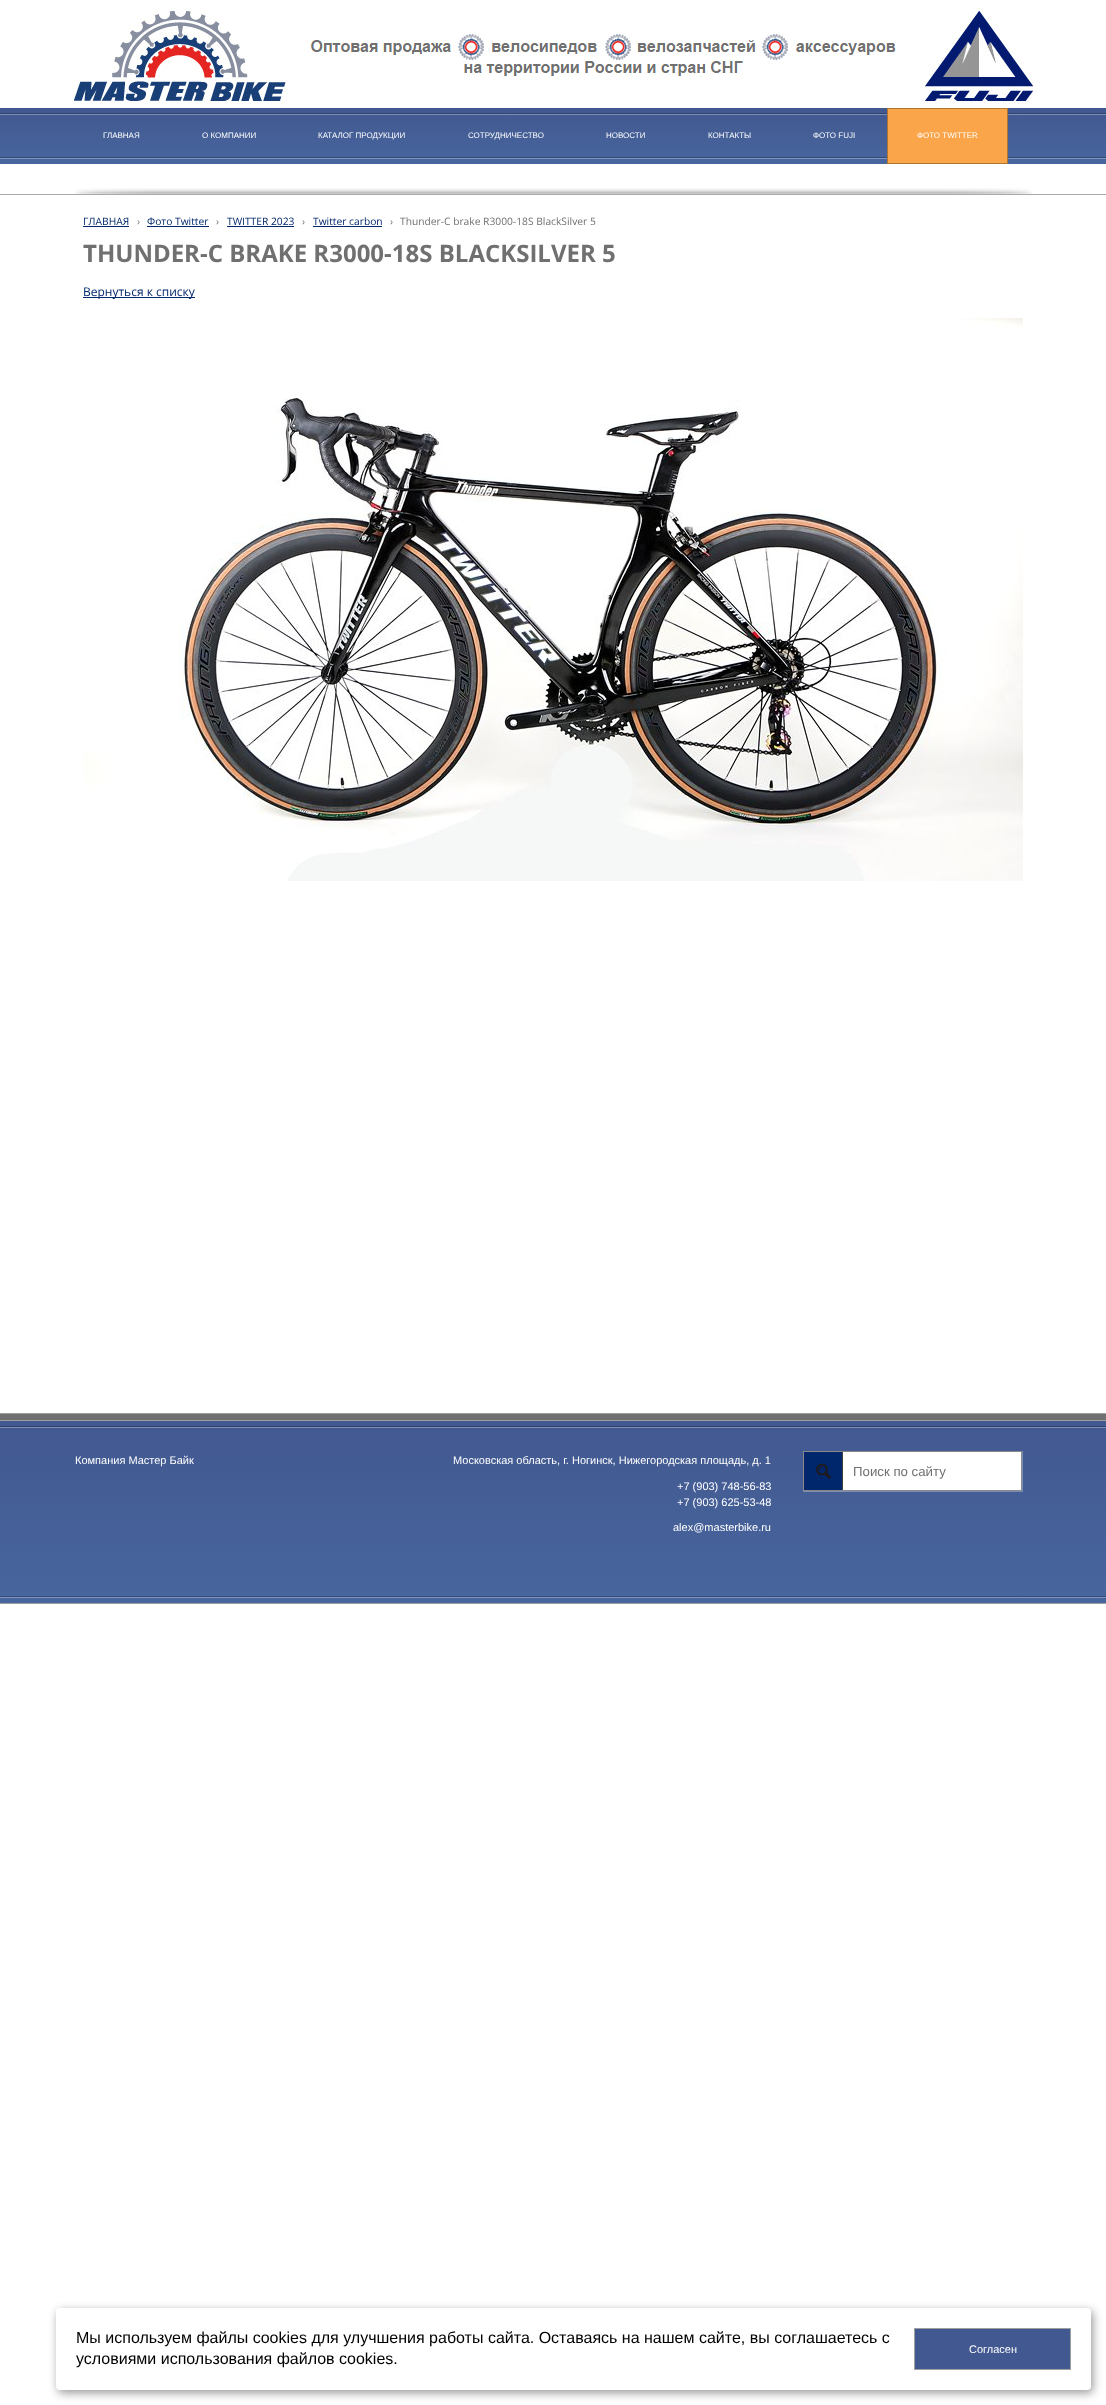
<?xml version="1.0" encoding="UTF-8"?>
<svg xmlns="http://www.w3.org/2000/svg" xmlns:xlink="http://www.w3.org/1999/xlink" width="1106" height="2405">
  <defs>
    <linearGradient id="g1" gradientUnits="userSpaceOnUse" x1="553" y1="108" x2="553" y2="164"><stop offset="0" stop-color="#425890" /><stop offset="1" stop-color="#48669e" /></linearGradient>
    <linearGradient id="g2" gradientUnits="userSpaceOnUse" x1="553" y1="1421" x2="553" y2="1603"><stop offset="0" stop-color="#425890" /><stop offset="1" stop-color="#48669e" /></linearGradient>
  </defs>
  <rect width="100%" height="100%" fill="#ffffff" />
  <image x="72" y="8" width="961" height="96" xlink:href="image1.png" />
  <rect y="108" width="1106" height="56" fill="url(#g1)" />
  <image x="0" y="113" width="1106" height="46" xlink:href="image2.png" />
  <rect x="887.5" y="108.5" width="120" height="55" fill="#faa54a" stroke="#af7434" />
  <image x="75" y="188" width="957" height="6" xlink:href="image3.png" />
  <rect y="194" width="1106" height="1" fill="#a9a9a9" />
  <rect x="83" y="226" width="46" height="1" fill="#00276c" />
  <rect x="147" y="226" width="62" height="1" fill="#00276c" />
  <rect x="227" y="226" width="67" height="1" fill="#00276c" />
  <rect x="313" y="226" width="69" height="1" fill="#00276c" />
  <rect x="83" y="297" width="112" height="1" fill="#00276c" />
  <image x="83" y="318" width="940" height="563" xlink:href="image4.png" />
  <rect y="1414" width="1106" height="6" fill="#707070" />
  <rect y="1413" width="1106" height="1" fill="#9f9f9f" />
  <rect y="1421" width="1106" height="182" fill="url(#g2)" />
  <rect y="1420" width="1106" height="1" fill="#9f9f9f" />
  <rect y="1603" width="1106" height="1" fill="#9f9f9f" />
  <image x="0" y="1426" width="1106" height="172" xlink:href="image5.png" />
  <path d="M 1023 1451 v 41 l -1 -1 v -40 z" fill="#ffffff" fill-opacity="0.3" />
  <path d="M 1023 1492 h -220 v -1 h 219 z" fill="#ffffff" fill-opacity="0.3" />
  <rect x="803.5" y="1451.5" width="218" height="39" fill="none" stroke="#898989" />
  <rect x="804" y="1452" width="38" height="38" fill="#00276c" />
  <image x="816" y="1463" width="15" height="16" xlink:href="image6.png" />
  <rect x="843" y="1452" width="178" height="38" fill="#ffffff" />
  <rect x="842" y="1452" width="1" height="38" fill="#3f3f3f" />
  <rect x="58" y="2311" width="1035" height="82" rx="4" fill="#000000" fill-opacity="0.4" filter="blur(5px)" />
  <rect x="56" y="2308" width="1035" height="82" rx="4" fill="#ffffff" />
  <rect x="914.5" y="2328.5" width="156" height="41" fill="#425890" stroke="#9f9f9f" />
  <text x="103" y="138" style="font-family: Liberation Sans; font-size: 8px; fill: #ffffff">ГЛАВНАЯ</text>
  <text x="202" y="138" style="font-family: Liberation Sans; font-size: 8px; fill: #ffffff">О КОМПАНИИ</text>
  <text x="318" y="138" style="font-family: Liberation Sans; font-size: 8px; fill: #ffffff">КАТАЛОГ ПРОДУКЦИИ</text>
  <text x="468" y="138" style="font-family: Liberation Sans; font-size: 8px; fill: #ffffff">СОТРУДНИЧЕСТВО</text>
  <text x="606" y="138" style="font-family: Liberation Sans; font-size: 8px; fill: #ffffff">НОВОСТИ</text>
  <text x="708" y="138" style="font-family: Liberation Sans; font-size: 8px; fill: #ffffff">КОНТАКТЫ</text>
  <text x="813" y="138" style="font-family: Liberation Sans; font-size: 8px; fill: #ffffff">ФОТО FUJI</text>
  <text x="917" y="138" style="font-family: Liberation Sans; font-size: 8px; fill: #ffffff">ФОТО TWITTER</text>
  <text x="83" y="225" style="font-family: Open Sans; font-size: 10.25px; fill: #00276c">ГЛАВНАЯ</text>
  <text x="137" y="225" style="font-family: Open Sans; font-size: 10.25px; fill: #707070">›</text>
  <text x="147" y="225" style="font-family: Open Sans; font-size: 10.25px; fill: #00276c">Фото Twitter</text>
  <text x="216" y="225" style="font-family: Open Sans; font-size: 10.25px; fill: #707070">›</text>
  <text x="227" y="225" style="font-family: Open Sans; font-size: 10.25px; fill: #00276c">TWITTER 2023</text>
  <text x="302" y="225" style="font-family: Open Sans; font-size: 10.25px; fill: #707070">›</text>
  <text x="313" y="225" style="font-family: Open Sans; font-size: 10.25px; fill: #00276c">Twitter carbon</text>
  <text x="390" y="225" style="font-family: Open Sans; font-size: 10.25px; fill: #707070">›</text>
  <text x="400" y="225" style="font-family: Open Sans; font-size: 10.25px; fill: #707070">Thunder-C brake R3000-18S BlackSilver 5</text>
  <text x="83" y="262" style="font-family: Open Sans; font-size: 24px; font-weight: bold; fill: #707070">THUNDER-C BRAKE R3000-18S BLACKSILVER 5</text>
  <text x="83" y="296" style="font-family: Open Sans; font-size: 12px; fill: #00276c">Вернуться к списку</text>
  <text x="75" y="1464" style="font-family: Liberation Sans; font-size: 11px; fill: #ffffff">Компания Мастер Байк</text>
  <text x="453" y="1464" style="font-family: Liberation Sans; font-size: 11px; fill: #ffffff">Московская область, г. Ногинск, Нижегородская площадь, д. 1</text>
  <text x="677" y="1490" style="font-family: Liberation Sans; font-size: 11px; fill: #ffffff">+7 (903) 748-56-83</text>
  <text x="677" y="1506" style="font-family: Liberation Sans; font-size: 11px; fill: #ffffff">+7 (903) 625-53-48</text>
  <text x="673" y="1531" style="font-family: Liberation Sans; font-size: 11px; fill: #ffffff">alex@masterbike.ru</text>
  <text x="853" y="1476" style="font-family: Liberation Sans; font-size: 13.25px; fill: #707070">Поиск по сайту</text>
  <text x="76" y="2343" style="font-family: Liberation Sans; font-size: 16px; fill: #000000">Мы используем файлы cookies для улучшения работы сайта. Оставаясь на нашем сайте, вы соглашаетесь с</text>
  <text x="76" y="2364" style="font-family: Liberation Sans; font-size: 16px; fill: #000000">условиями использования файлов cookies.</text>
  <text x="969" y="2353" style="font-family: Liberation Sans; font-size: 11px; fill: #ffffff">Согласен</text>
</svg>
